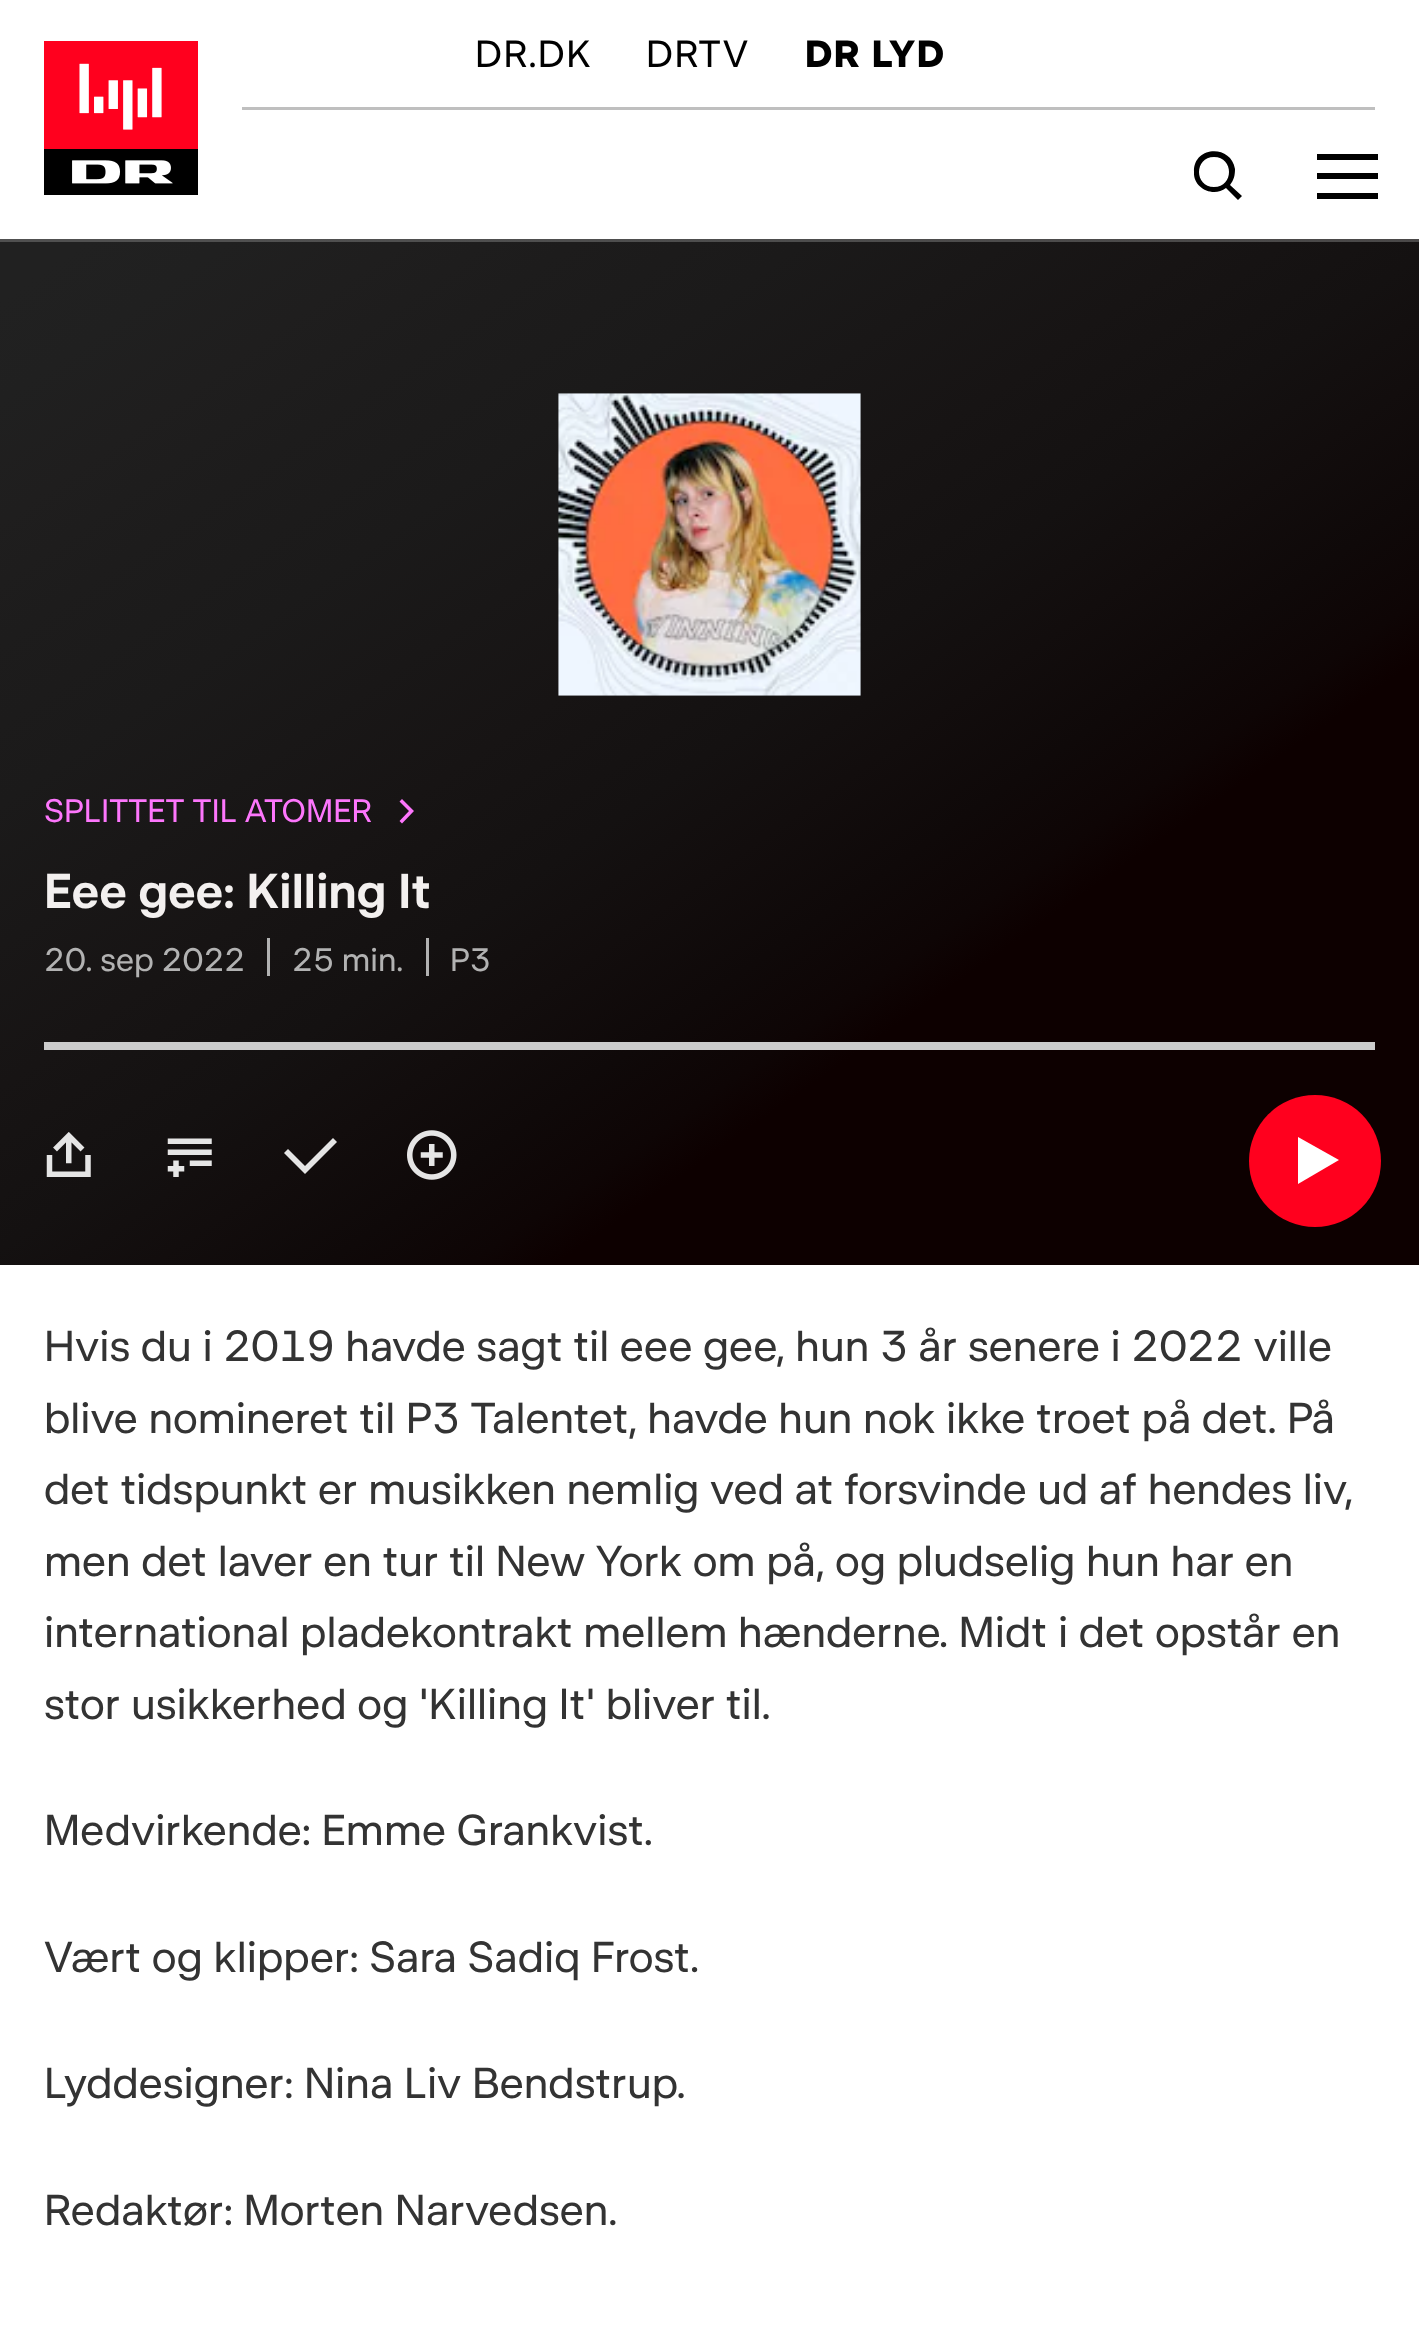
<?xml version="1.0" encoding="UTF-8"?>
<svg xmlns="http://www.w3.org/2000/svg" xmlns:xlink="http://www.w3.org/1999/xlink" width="1419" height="2334">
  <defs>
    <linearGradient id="g1" gradientUnits="userSpaceOnUse" x1="235" y1="75" x2="1184" y2="1430"><stop offset="0" stop-color="#212121" /><stop offset="0.03" stop-color="#212121" /><stop offset="0.08" stop-color="#202020" /><stop offset="0.14" stop-color="#1f1e1e" /><stop offset="0.2" stop-color="#1d1c1c" /><stop offset="0.28" stop-color="#1b1a1a" /><stop offset="0.35" stop-color="#191717" /><stop offset="0.42" stop-color="#171414" /><stop offset="0.5" stop-color="#141111" /><stop offset="0.56" stop-color="#120d0d" /><stop offset="0.62" stop-color="#0f0909" /><stop offset="0.67" stop-color="#0e0505" /><stop offset="0.7" stop-color="#0d0000" /></linearGradient>
    <linearGradient id="g2" gradientUnits="userSpaceOnUse" x1="235" y1="75" x2="1184" y2="1430"><stop offset="0" stop-color="#505050" /><stop offset="0.03" stop-color="#505050" /><stop offset="0.08" stop-color="#505050" /><stop offset="0.14" stop-color="#4f4f4f" /><stop offset="0.2" stop-color="#4e4e4e" /><stop offset="0.28" stop-color="#4d4d4d" /><stop offset="0.35" stop-color="#4c4b4b" /><stop offset="0.42" stop-color="#4b4a4a" /><stop offset="0.5" stop-color="#4a4848" /><stop offset="0.56" stop-color="#494646" /><stop offset="0.62" stop-color="#474444" /><stop offset="0.67" stop-color="#474242" /><stop offset="0.7" stop-color="#464040" /></linearGradient>
  </defs>
  <rect width="100%" height="100%" fill="#ffffff" />
  <image x="44" y="41" width="154" height="154" xlink:href="image1.png" />
  <rect x="242" y="107" width="1133" height="3" fill="#bfbfbf" />
  <path d="M 1214 157 c -20 0 -20 30 0 30 c 20 0 20 -30 0 -30 m -20 15 c -1 -26 37 -28 41 -3 c 0 6 -1 11 -5 16 l 12 11 l -4 4 l -12 -12 c -13 10 -33 0 -32 -16" fill="#000000" />
  <rect x="1317" y="154" width="61" height="6" fill="#000000" />
  <rect x="1317" y="173" width="61" height="6" fill="#000000" />
  <rect x="1317" y="193" width="61" height="6" fill="#000000" />
  <rect y="242" width="1419" height="1023" fill="url(#g1)" />
  <rect y="239" width="1419" height="3" fill="url(#g2)" />
  <image x="558" y="393" width="303" height="303" xlink:href="image2.png" />
  <path d="M 409 811 l -9.5 -9.5 l 2.5 -2.5 l 12 12 l -12 12.5 l -2.5 -2.5 z" fill="#fd76fc" />
  <rect x="267" y="938" width="3" height="38" fill="#b2b2b2" />
  <rect x="426" y="938" width="3" height="38" fill="#b2b2b2" />
  <rect x="44" y="1042" width="1331" height="8" fill="#cccccc" />
  <image x="46" y="1132" width="45" height="45" xlink:href="image3.png" />
  <image x="167" y="1138" width="45" height="39" xlink:href="image4.png" />
  <path d="M 305 1166 l 28 -28 l 4 4 l -32 32 l -21 -21 l 4 -4 z" fill="#e5e5e5" />
  <image x="407" y="1130" width="50" height="50" xlink:href="image5.png" />
  <circle cx="1315" cy="1161" r="66" fill="#ff001e" />
  <path d="M 1339 1160 l -41 24 v -47 z" fill="#ffffff" />
  <text x="475" y="67" style="font-family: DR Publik; font-size: 38.5px; letter-spacing: 1.5px; fill: #000000">DR.DK</text>
  <text x="646" y="67" style="font-family: DR Publik; font-size: 38.5px; letter-spacing: 1.5px; fill: #000000">DRTV</text>
  <text x="805" y="67" style="font-family: DR Publik; font-size: 38.5px; font-weight: bold; letter-spacing: 1.5px; fill: #000000">DR LYD</text>
  <text x="44" y="822" style="font-family: DR Publik; font-size: 33px; fill: #fd76fc">SPLITTET TIL ATOMER</text>
  <text x="44" y="908" style="font-family: DR Publik; font-size: 49.5px; font-weight: 600; fill: #f3f0ef">Eee gee: Killing It</text>
  <text x="44" y="971" style="font-family: DR Publik; font-size: 33px; fill: #b2b2b2">20. sep 2022</text>
  <text x="292" y="971" style="font-family: DR Publik; font-size: 33px; fill: #b2b2b2">25 min.</text>
  <text x="450" y="971" style="font-family: DR Publik; font-size: 33px; fill: #b2b2b2">P3</text>
  <text x="44" y="1361" style="font-family: DR Publik; font-size: 44px; fill: #333333">Hvis du i 2019 havde sagt til eee gee, hun 3 år senere i 2022 ville</text>
  <text x="44" y="1433" style="font-family: DR Publik; font-size: 44px; fill: #333333">blive nomineret til P3 Talentet, havde hun nok ikke troet på det. På</text>
  <text x="44" y="1504" style="font-family: DR Publik; font-size: 44px; fill: #333333">det tidspunkt er musikken nemlig ved at forsvinde ud af hendes liv,</text>
  <text x="44" y="1576" style="font-family: DR Publik; font-size: 44px; fill: #333333">men det laver en tur til New York om på, og pludselig hun har en</text>
  <text x="44" y="1647" style="font-family: DR Publik; font-size: 44px; fill: #333333">international pladekontrakt mellem hænderne. Midt i det opstår en</text>
  <text x="44" y="1719" style="font-family: DR Publik; font-size: 44px; fill: #333333">stor usikkerhed og 'Killing It' bliver til.</text>
  <text x="44" y="1845" style="font-family: DR Publik; font-size: 44px; fill: #333333">Medvirkende: Emme Grankvist.</text>
  <text x="44" y="1972" style="font-family: DR Publik; font-size: 44px; fill: #333333">Vært og klipper: Sara Sadiq Frost.</text>
  <text x="44" y="2098" style="font-family: DR Publik; font-size: 44px; fill: #333333">Lyddesigner: Nina Liv Bendstrup.</text>
  <text x="44" y="2225" style="font-family: DR Publik; font-size: 44px; fill: #333333">Redaktør: Morten Narvedsen.</text>
</svg>
